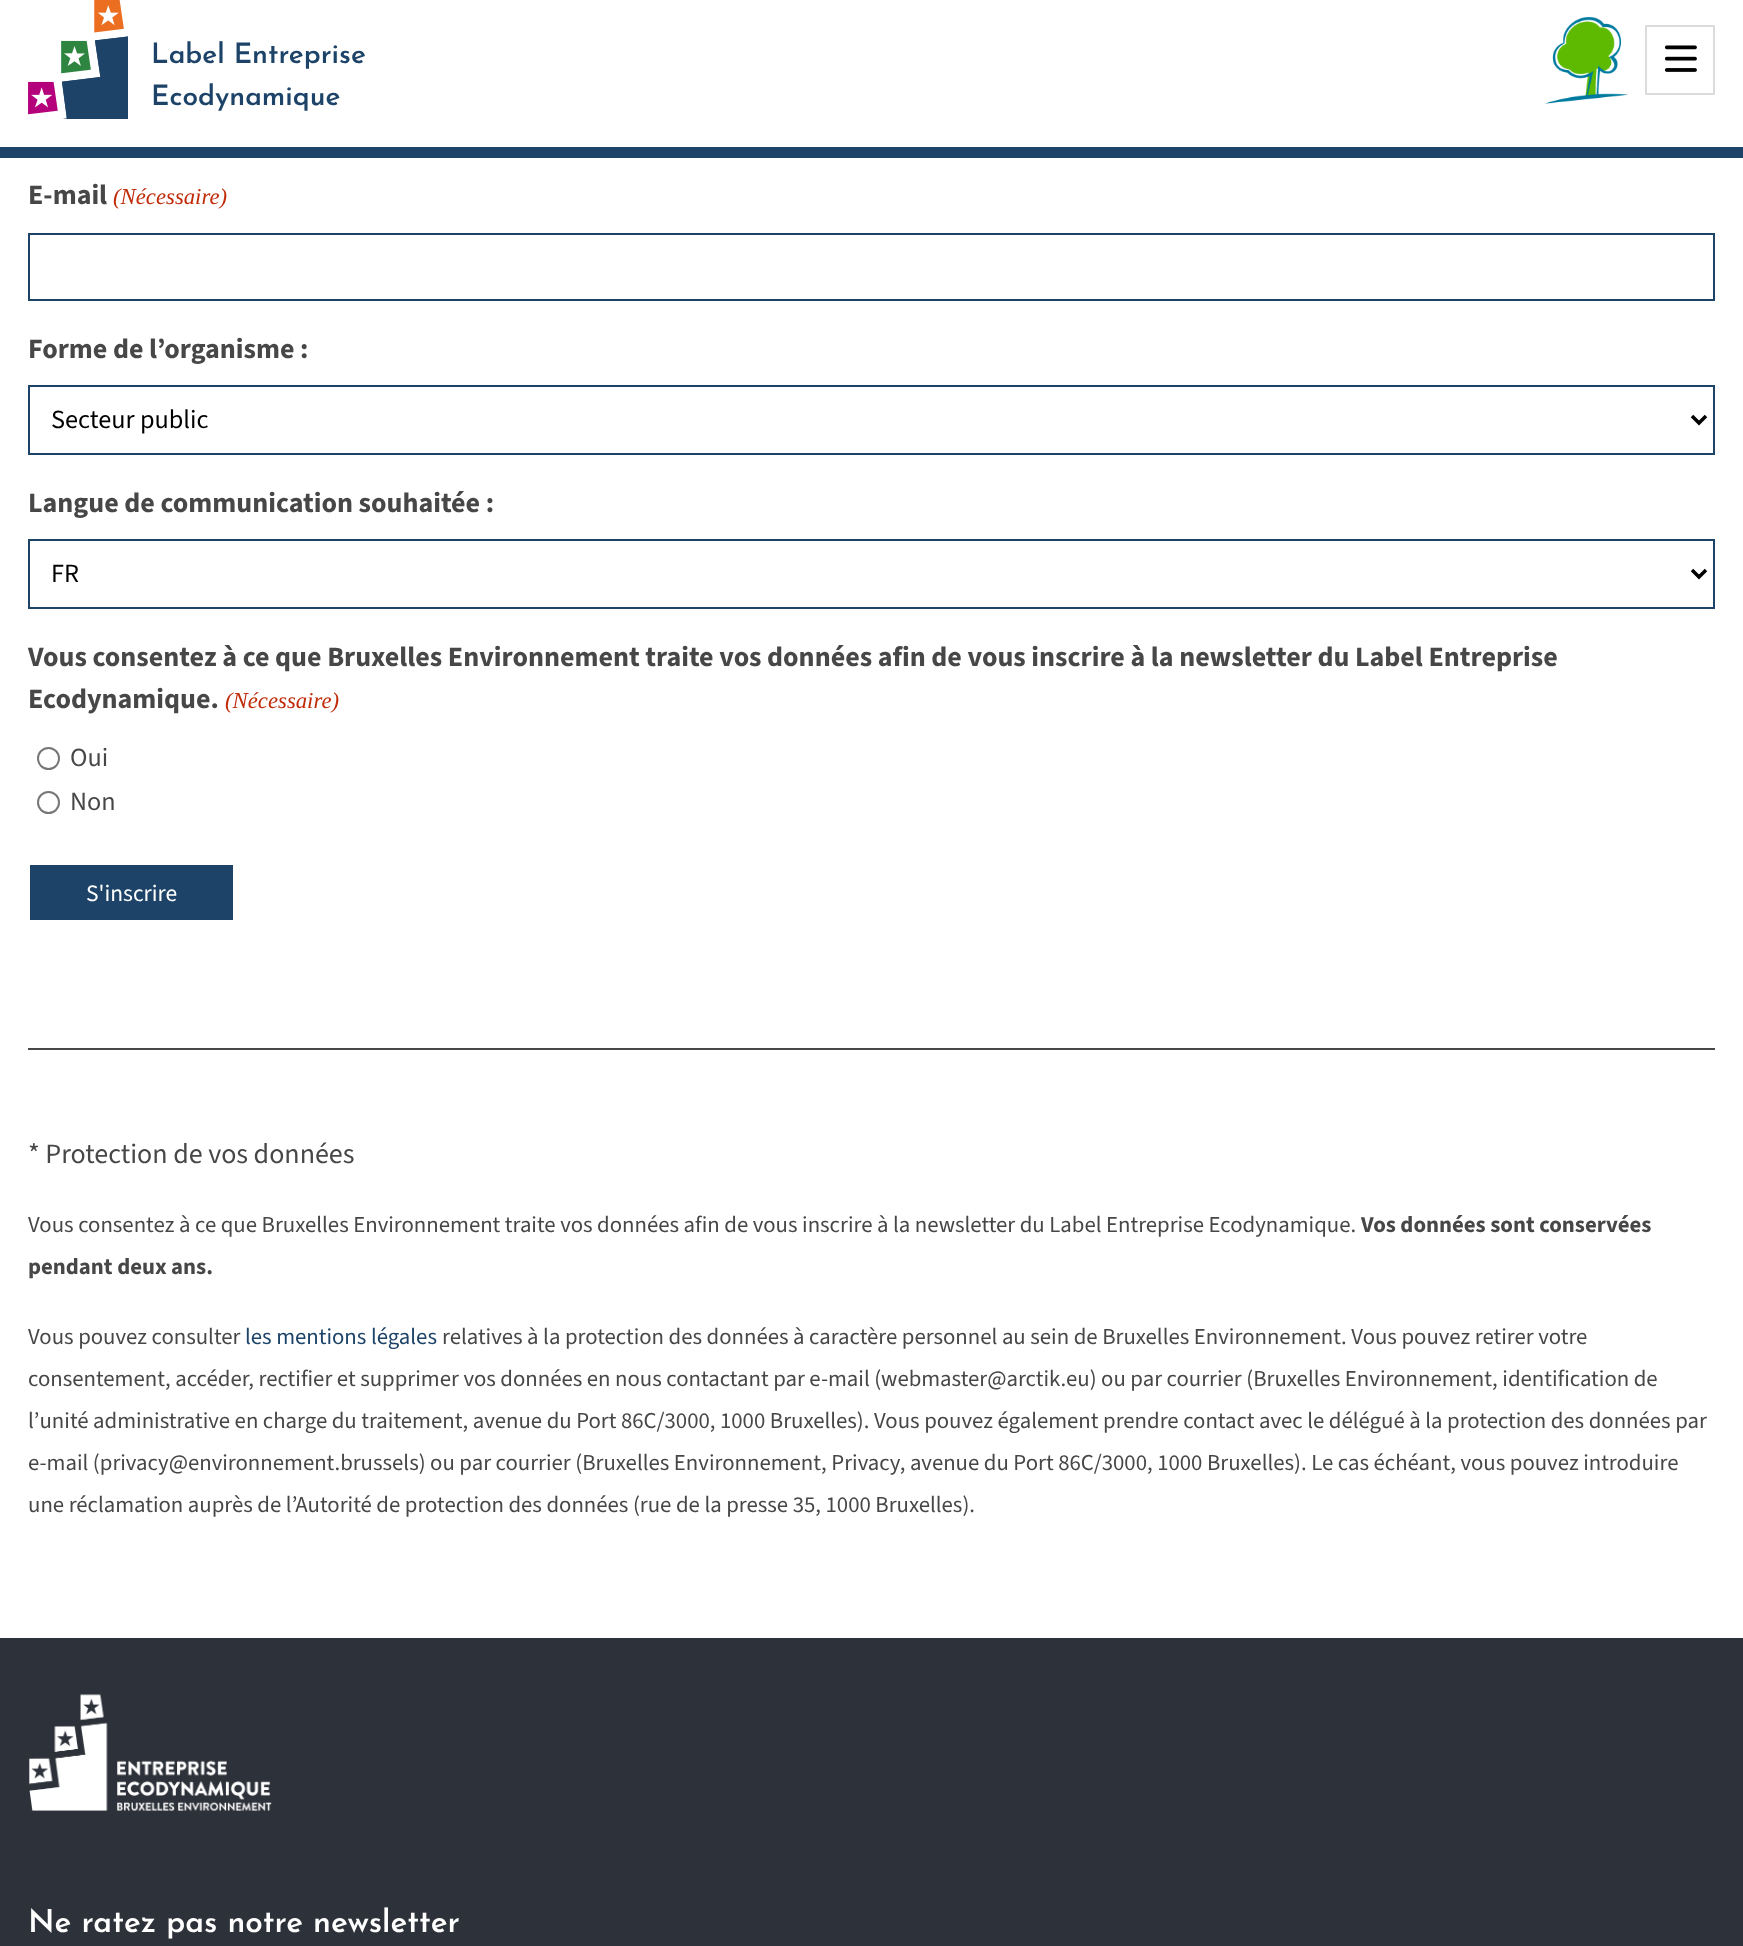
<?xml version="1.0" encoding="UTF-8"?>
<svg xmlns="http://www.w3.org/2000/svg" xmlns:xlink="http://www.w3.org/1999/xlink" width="1743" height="1946">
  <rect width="100%" height="100%" fill="#ffffff" />
  <rect y="147" width="1743" height="11" fill="#1d4468" />
  <image x="28" y="0" width="100" height="119" xlink:href="image1.png" />
  <image x="1545" y="16" width="83" height="88" xlink:href="image2.png" />
  <image x="1664" y="45" width="33" height="27" xlink:href="image3.png" />
  <rect x="1646" y="26" width="68" height="68" fill="none" stroke="#dcdcdc" stroke-width="2" />
  <rect x="29" y="234" width="1685" height="66" fill="none" stroke="#1d4468" stroke-width="2" />
  <rect x="29" y="386" width="1685" height="68" fill="none" stroke="#1d4468" stroke-width="2" />
  <path d="M 1692 416 l 7 7 l 7 -7" fill="none" stroke="#000000" stroke-width="3.5" />
  <rect x="29" y="540" width="1685" height="68" fill="none" stroke="#1d4468" stroke-width="2" />
  <path d="M 1692 570 l 7 7 l 7 -7" fill="none" stroke="#000000" stroke-width="3.5" />
  <circle cx="48.5" cy="758.5" r="10.5" fill="none" stroke="#767676" stroke-width="2" />
  <circle cx="48.5" cy="802.5" r="10.5" fill="none" stroke="#767676" stroke-width="2" />
  <rect x="30" y="865" width="203" height="55" fill="#1d4468" />
  <rect x="28" y="1048" width="1687" height="2" fill="#474747" />
  <rect y="1638" width="1743" height="308" fill="#2d3139" />
  <image x="29" y="1694" width="243" height="117" xlink:href="image4.png" />
  <text x="151" y="63" style="font-family: Josefin Sans; font-size: 28px; font-weight: 600; fill: #1d4468">Label Entreprise</text>
  <text x="151" y="105" style="font-family: Josefin Sans; font-size: 28px; font-weight: 600; fill: #1d4468">Ecodynamique</text>
  <text x="28" y="204" style="font-family: 'Source Sans 3'; font-size: 28px; font-weight: bold; fill: #474747">E-mail</text>
  <text x="113" y="204" style="font-family: Liberation Serif; font-size: 22.75px; font-style: italic; fill: #c02b0a">(Nécessaire)</text>
  <text x="28" y="358" style="font-family: 'Source Sans 3'; font-size: 28px; font-weight: bold; fill: #474747">Forme de l’organisme :</text>
  <text x="51" y="428" style="font-family: 'Source Sans 3'; font-size: 26.25px; fill: #000000">Secteur public</text>
  <text x="28" y="512" style="font-family: 'Source Sans 3'; font-size: 28px; font-weight: bold; fill: #474747">Langue de communication souhaitée :</text>
  <text x="51" y="582" style="font-family: 'Source Sans 3'; font-size: 26.25px; fill: #000000">FR</text>
  <text x="28" y="666" style="font-family: 'Source Sans 3'; font-size: 28px; font-weight: bold; fill: #474747">Vous consentez à ce que Bruxelles Environnement traite vos données afin de vous inscrire à la newsletter du Label Entreprise</text>
  <text x="28" y="708" style="font-family: 'Source Sans 3'; font-size: 28px; font-weight: bold; fill: #474747">Ecodynamique.</text>
  <text x="225" y="708" style="font-family: Liberation Serif; font-size: 22.75px; font-style: italic; fill: #c02b0a">(Nécessaire)</text>
  <text x="70" y="766" style="font-family: 'Source Sans 3'; font-size: 26.25px; fill: #474747">Oui</text>
  <text x="70" y="810" style="font-family: 'Source Sans 3'; font-size: 26.25px; fill: #474747">Non</text>
  <text x="86" y="901" style="font-family: 'Source Sans 3'; font-size: 23.5px; fill: #ffffff">S'inscrire</text>
  <text x="28" y="1163" style="font-family: 'Source Sans 3'; font-size: 28px; fill: #474747">* Protection de vos données</text>
  <text x="28" y="1232" style="font-family: 'Source Sans 3'; font-size: 22.75px; fill: #474747">Vous consentez à ce que Bruxelles Environnement traite vos données afin de vous inscrire à la newsletter du Label Entreprise Ecodynamique.</text>
  <text x="1361" y="1232" style="font-family: 'Source Sans 3'; font-size: 22.75px; font-weight: bold; fill: #474747">Vos données sont conservées</text>
  <text x="28" y="1274" style="font-family: 'Source Sans 3'; font-size: 22.75px; font-weight: bold; fill: #474747">pendant deux ans.</text>
  <text x="28" y="1344" style="font-family: 'Source Sans 3'; font-size: 22.75px; fill: #474747">Vous pouvez consulter</text>
  <text x="245" y="1344" style="font-family: 'Source Sans 3'; font-size: 22.75px; fill: #1d4468">les mentions légales</text>
  <text x="442" y="1344" style="font-family: 'Source Sans 3'; font-size: 22.75px; fill: #474747">relatives à la protection des données à caractère personnel au sein de Bruxelles Environnement. Vous pouvez retirer votre</text>
  <text x="28" y="1386" style="font-family: 'Source Sans 3'; font-size: 22.75px; fill: #474747">consentement, accéder, rectifier et supprimer vos données en nous contactant par e-mail (webmaster@arctik.eu) ou par courrier (Bruxelles Environnement, identification de</text>
  <text x="28" y="1428" style="font-family: 'Source Sans 3'; font-size: 22.75px; fill: #474747">l’unité administrative en charge du traitement, avenue du Port 86C/3000, 1000 Bruxelles). Vous pouvez également prendre contact avec le délégué à la protection des données par</text>
  <text x="28" y="1470" style="font-family: 'Source Sans 3'; font-size: 22.75px; fill: #474747">e-mail (privacy@environnement.brussels) ou par courrier (Bruxelles Environnement, Privacy, avenue du Port 86C/3000, 1000 Bruxelles). Le cas échéant, vous pouvez introduire</text>
  <text x="28" y="1512" style="font-family: 'Source Sans 3'; font-size: 22.75px; fill: #474747">une réclamation auprès de l’Autorité de protection des données (rue de la presse 35, 1000 Bruxelles).</text>
  <text x="28" y="1932" style="font-family: Josefin Sans; font-size: 31.5px; font-weight: 600; fill: #ffffff">Ne ratez pas notre newsletter</text>
</svg>
